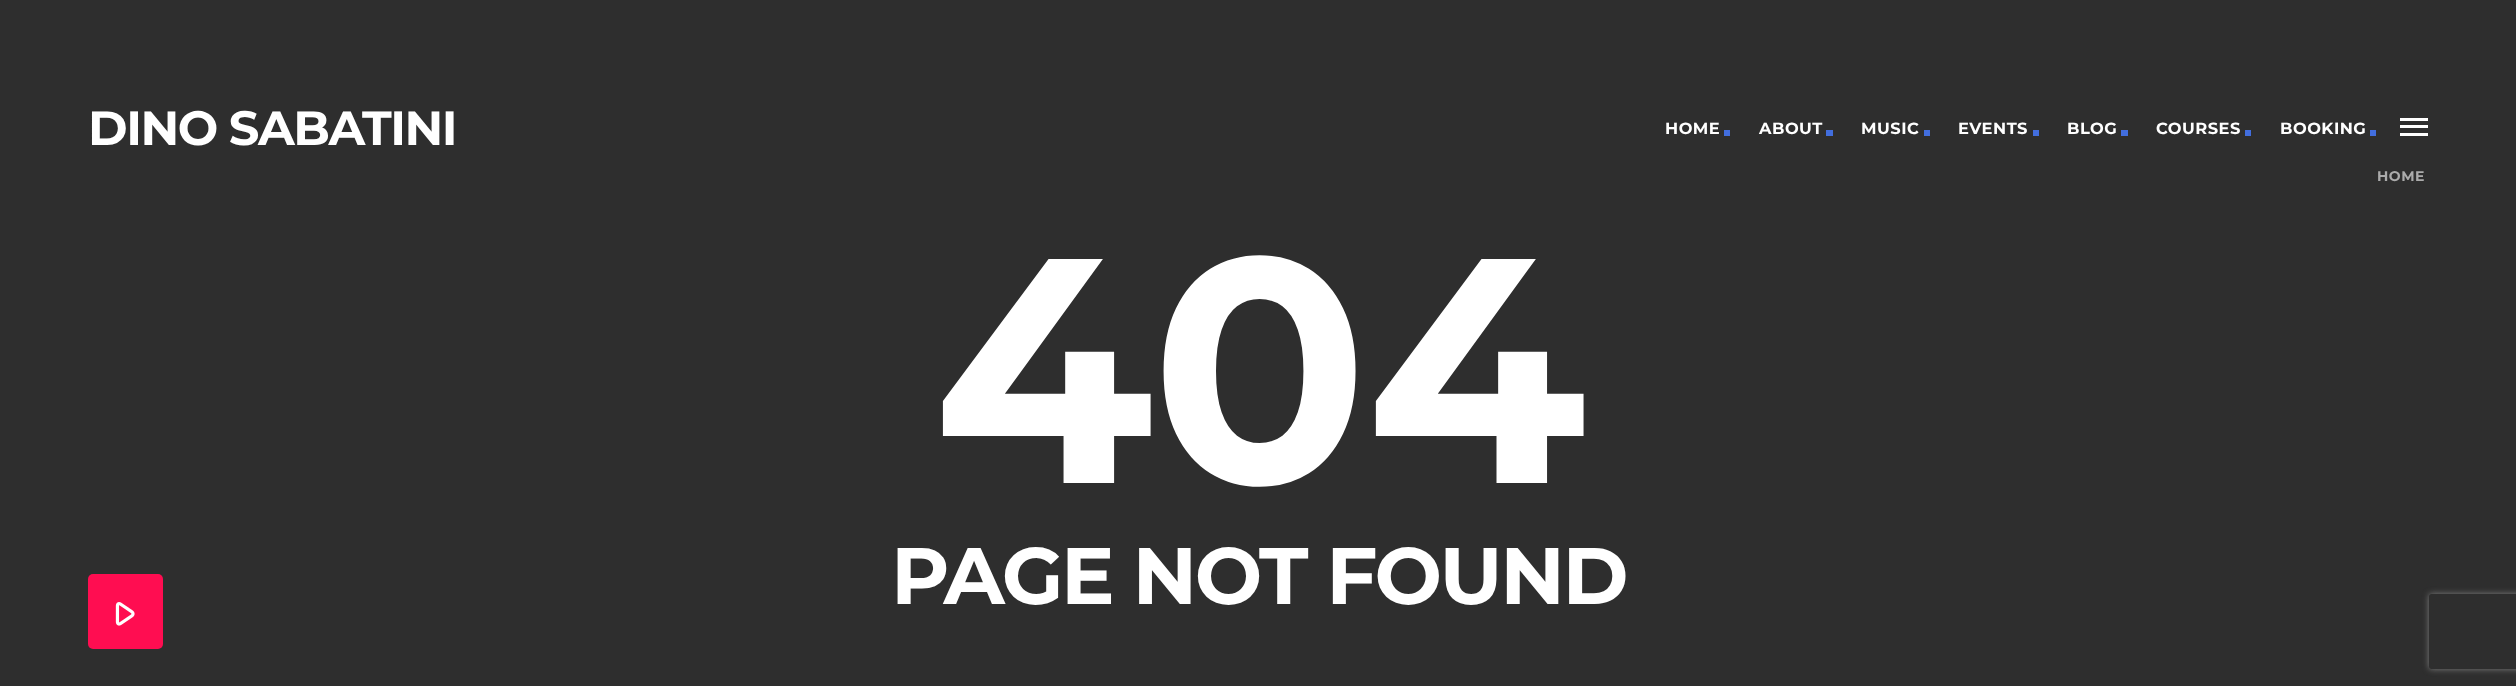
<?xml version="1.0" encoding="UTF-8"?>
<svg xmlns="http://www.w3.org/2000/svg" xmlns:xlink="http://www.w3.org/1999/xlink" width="2516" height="686">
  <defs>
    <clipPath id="clip1"><path d="M 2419 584 h 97 v 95 h -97 z m 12.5 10 h 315 c 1.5 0 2.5 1 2.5 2.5 v 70 c 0 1.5 -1 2.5 -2.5 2.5 h -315 c -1.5 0 -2.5 -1 -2.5 -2.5 v -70 c 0 -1.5 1 -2.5 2.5 -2.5 z" clip-rule="evenodd" /></clipPath>
  </defs>
  <rect width="100%" height="100%" fill="#2e2e2e" />
  <rect x="1724" y="130" width="6" height="6" fill="#426ede" />
  <rect x="1826" y="130" width="7" height="6" fill="#426ede" />
  <rect x="1924" y="130" width="6" height="6" fill="#426ede" />
  <rect x="2033" y="130" width="6" height="6" fill="#426ede" />
  <rect x="2121" y="130" width="7" height="6" fill="#426ede" />
  <rect x="2245" y="130" width="6" height="6" fill="#426ede" />
  <rect x="2370" y="130" width="6" height="6" fill="#426ede" />
  <rect x="2400" y="118" width="28" height="3" fill="#ffffff" />
  <rect x="2400" y="125" width="28" height="3" fill="#ffffff" />
  <rect x="2400" y="133" width="28" height="3" fill="#ffffff" />
  <rect x="88" y="574" width="75" height="75" rx="5" fill="#ff0d51" />
  <image x="115" y="602" width="20" height="24" xlink:href="image1.png" />
  <g clip-path="url(#clip1)">
    <rect x="2429" y="594" width="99" height="75" rx="2.5" fill="#808080" filter="blur(3px)" />
  </g>
  <text x="88" y="145" style="font-family: Montserrat; font-size: 48px; font-weight: 100; letter-spacing: -1.5px; fill: #ffffff">DINO SABATINI</text>
  <text x="1665" y="134" style="font-family: Montserrat; font-size: 16.25px; font-weight: 100; letter-spacing: 0.5px; fill: #ffffff">HOME</text>
  <text x="1759" y="134" style="font-family: Montserrat; font-size: 16.25px; font-weight: 100; letter-spacing: 0.5px; fill: #ffffff">ABOUT</text>
  <text x="1861" y="134" style="font-family: Montserrat; font-size: 16.25px; font-weight: 100; letter-spacing: 0.5px; fill: #ffffff">MUSIC</text>
  <text x="1958" y="134" style="font-family: Montserrat; font-size: 16.25px; font-weight: 100; letter-spacing: 0.5px; fill: #ffffff">EVENTS</text>
  <text x="2067" y="134" style="font-family: Montserrat; font-size: 16.25px; font-weight: 100; letter-spacing: 0.5px; fill: #ffffff">BLOG</text>
  <text x="2156" y="134" style="font-family: Montserrat; font-size: 16.25px; font-weight: 100; letter-spacing: 0.5px; fill: #ffffff">COURSES</text>
  <text x="2280" y="134" style="font-family: Montserrat; font-size: 16.25px; font-weight: 100; letter-spacing: 0.5px; fill: #ffffff">BOOKING</text>
  <text x="2377" y="181" style="font-family: Montserrat; font-size: 14px; font-weight: 100; letter-spacing: 0.5px; fill: #ababab">HOME</text>
  <text x="933" y="483" style="font-family: Montserrat; font-size: 320px; font-weight: 100; letter-spacing: -2.4px; fill: #ffffff">404</text>
  <text x="891" y="604" style="font-family: Montserrat; font-size: 80px; font-weight: 100; letter-spacing: -2.4px; fill: #ffffff">PAGE NOT FOUND</text>
</svg>
